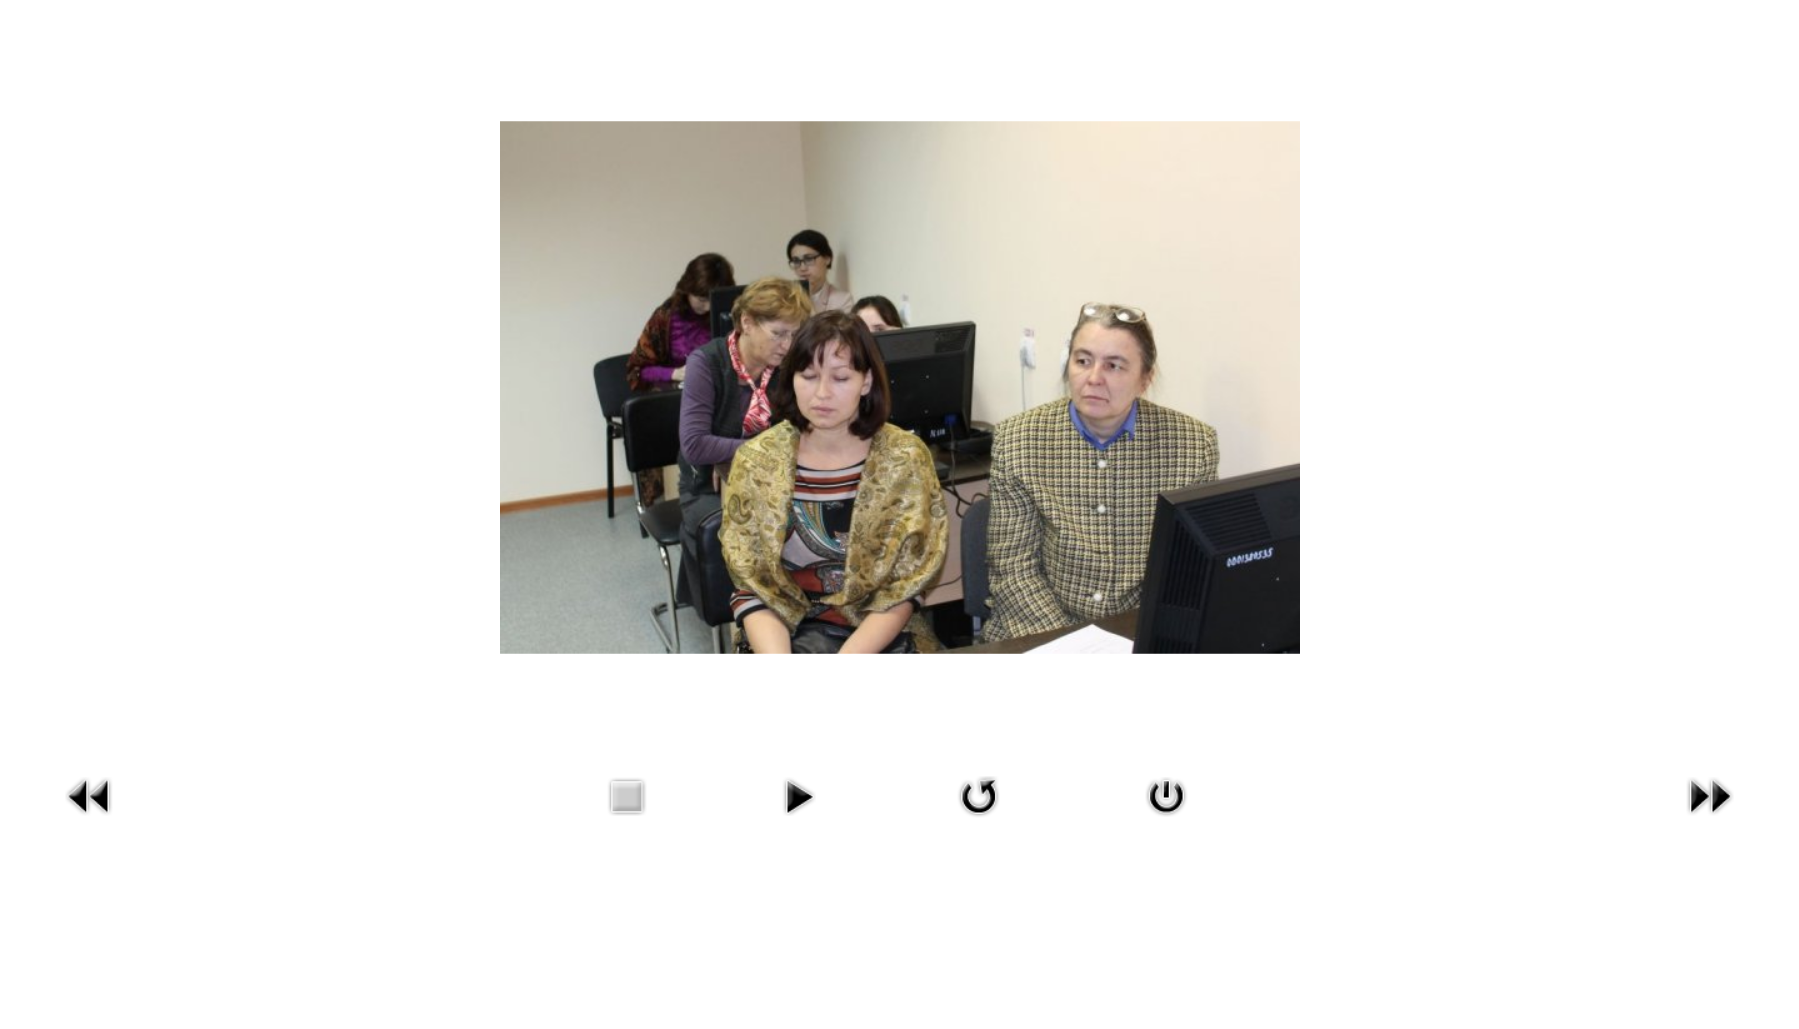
<?xml version="1.0" encoding="UTF-8"?>
<svg xmlns="http://www.w3.org/2000/svg" xmlns:xlink="http://www.w3.org/1999/xlink" width="1799" height="1029">
  <rect width="100%" height="100%" fill="#ffffff" />
  <image x="500" y="121" width="800" height="533" xlink:href="image1.png" />
  <image x="65" y="777" width="48" height="39" xlink:href="image2.png" />
  <image x="607" y="777" width="40" height="39" xlink:href="image3.png" />
  <image x="782" y="777" width="34" height="39" xlink:href="image4.png" />
  <image x="957" y="776" width="43" height="42" xlink:href="image5.png" />
  <image x="1145" y="777" width="43" height="40" xlink:href="image6.png" />
  <image x="1686" y="777" width="48" height="39" xlink:href="image7.png" />
</svg>
